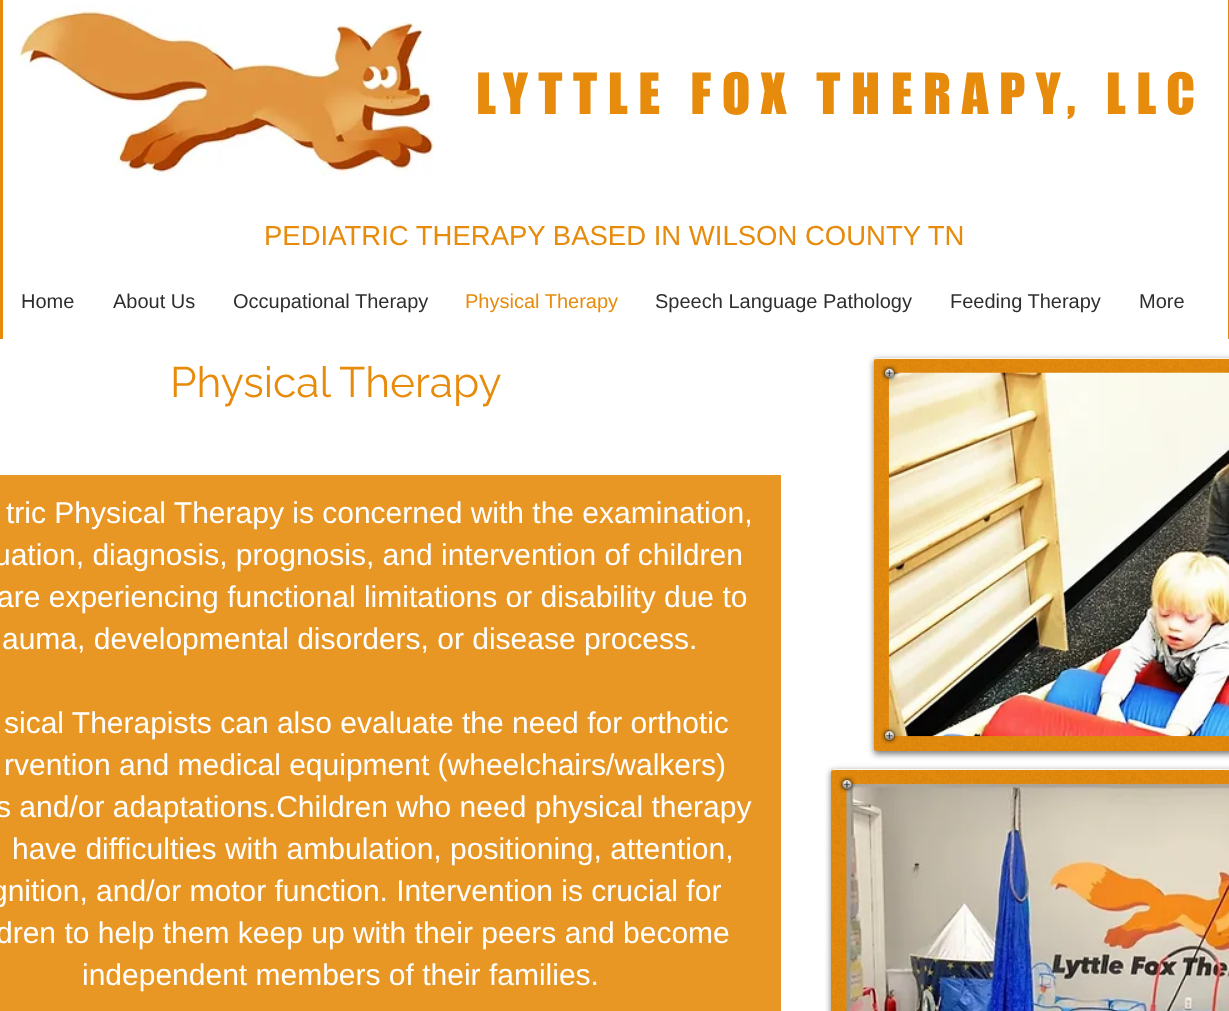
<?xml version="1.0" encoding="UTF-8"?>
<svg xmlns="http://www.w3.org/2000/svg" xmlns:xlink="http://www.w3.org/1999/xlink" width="1229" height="1011">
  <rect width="100%" height="100%" fill="#ffffff" />
  <rect width="1229" height="339" fill="#e68b0c" />
  <rect x="3" width="1225" height="339" fill="#ffffff" />
  <image x="18" y="5" width="416" height="171" xlink:href="image1.png" />
  <rect x="874" y="360" width="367" height="394" rx="2.5" fill="#000000" fill-opacity="0.53" filter="blur(3px)" />
  <path d="M 876.5 358 h 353.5 v 393 h -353.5 c -1.5 0 -2.5 -1 -2.5 -2.5 v -388 c 0 -1.5 1 -2.5 2.5 -2.5 z" fill="#e68b0c" />
  <image x="874" y="358" width="355" height="393" xlink:href="image2.png" />
  <path d="M 876 359 c -1 0 -2 1 -2 2 c 0 -2 1 -3 2 -3 h 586 c 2 0 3 1 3 3 c 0 -1 -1 -2 -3 -2 z" fill="#ffffff" fill-opacity="0.92" />
  <image x="888" y="372" width="341" height="365" xlink:href="image4.png" />
  <image x="881" y="365" width="17" height="17" xlink:href="image3.png" />
  <image x="881" y="727" width="17" height="17" xlink:href="image5.png" />
  <rect y="475" width="781" height="536" fill="#e99724" />
  <rect x="831" y="771" width="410" height="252" rx="2.5" fill="#000000" fill-opacity="0.53" filter="blur(3px)" />
  <path d="M 833.5 769 h 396.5 v 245 h -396.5 c -1.5 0 -2.5 -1 -2.5 -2.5 v -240 c 0 -1.5 1 -2.5 2.5 -2.5 z" fill="#e68b0c" />
  <image x="831" y="769" width="398" height="242" xlink:href="image6.png" />
  <path d="M 834 770 c -2 0 -3 1 -3 2 c 0 -2 1 -3 3 -3 h 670 c 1 0 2 1 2 3 c 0 -1 -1 -2 -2 -2 z" fill="#ffffff" fill-opacity="0.92" />
  <image x="846" y="783" width="383" height="228" xlink:href="image8.png" />
  <image x="838" y="776" width="18" height="17" xlink:href="image7.png" />
  <text x="476" y="114" style="font-family: 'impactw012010'; font-size: 52.5px; letter-spacing: 10.5px; fill: #e68b0c">LYTTLE FOX THERAPY, LLC</text>
  <text x="264" y="245" style="font-family: Liberation Sans; font-size: 27.5px; fill: #e68b0c">PEDIATRIC THERAPY BASED IN WILSON COUNTY TN</text>
  <text x="21" y="308" style="font-family: Liberation Sans; font-size: 20px; fill: #2f2e2e">Home</text>
  <text x="113" y="308" style="font-family: Liberation Sans; font-size: 20px; fill: #2f2e2e">About Us</text>
  <text x="233" y="308" style="font-family: Liberation Sans; font-size: 20px; fill: #2f2e2e">Occupational Therapy</text>
  <text x="465" y="308" style="font-family: Liberation Sans; font-size: 20px; fill: #e68b0c">Physical Therapy</text>
  <text x="655" y="308" style="font-family: Liberation Sans; font-size: 20px; fill: #2f2e2e">Speech Language Pathology</text>
  <text x="950" y="308" style="font-family: Liberation Sans; font-size: 20px; fill: #2f2e2e">Feeding Therapy</text>
  <text x="1139" y="308" style="font-family: Liberation Sans; font-size: 20px; fill: #2f2e2e">More</text>
  <text x="170" y="397" style="font-family: Raleway; font-size: 42.5px; fill: #e68b0c">Physical Therapy</text>
  <text x="6" y="523" style="font-family: Liberation Sans; font-size: 30px; fill: #ffffff">tric Physical Therapy is concerned with the examination,</text>
  <text x="-6" y="565" style="font-family: Liberation Sans; font-size: 30px; fill: #ffffff">uation, diagnosis, prognosis, and intervention of children</text>
  <text x="-3" y="607" style="font-family: Liberation Sans; font-size: 30px; fill: #ffffff">are experiencing functional limitations or disability due to</text>
  <text x="2" y="649" style="font-family: Liberation Sans; font-size: 30px; fill: #ffffff">auma, developmental disorders, or disease process.</text>
  <text x="4" y="733" style="font-family: Liberation Sans; font-size: 30px; fill: #ffffff">sical Therapists can also evaluate the need for orthotic</text>
  <text x="4" y="775" style="font-family: Liberation Sans; font-size: 30px; fill: #ffffff">rvention and medical equipment (wheelchairs/walkers)</text>
  <text x="-4" y="817" style="font-family: Liberation Sans; font-size: 30px; fill: #ffffff">s and/or adaptations.Children who need physical therapy</text>
  <text x="12" y="859" style="font-family: Liberation Sans; font-size: 30px; fill: #ffffff">have difficulties with ambulation, positioning, attention,</text>
  <text x="-9" y="901" style="font-family: Liberation Sans; font-size: 30px; fill: #ffffff">gnition, and/or motor function. Intervention is crucial for</text>
  <text x="-4" y="943" style="font-family: Liberation Sans; font-size: 30px; fill: #ffffff">dren to help them keep up with their peers and become</text>
  <text x="82" y="985" style="font-family: Liberation Sans; font-size: 30px; fill: #ffffff">independent members of their families.</text>
</svg>
